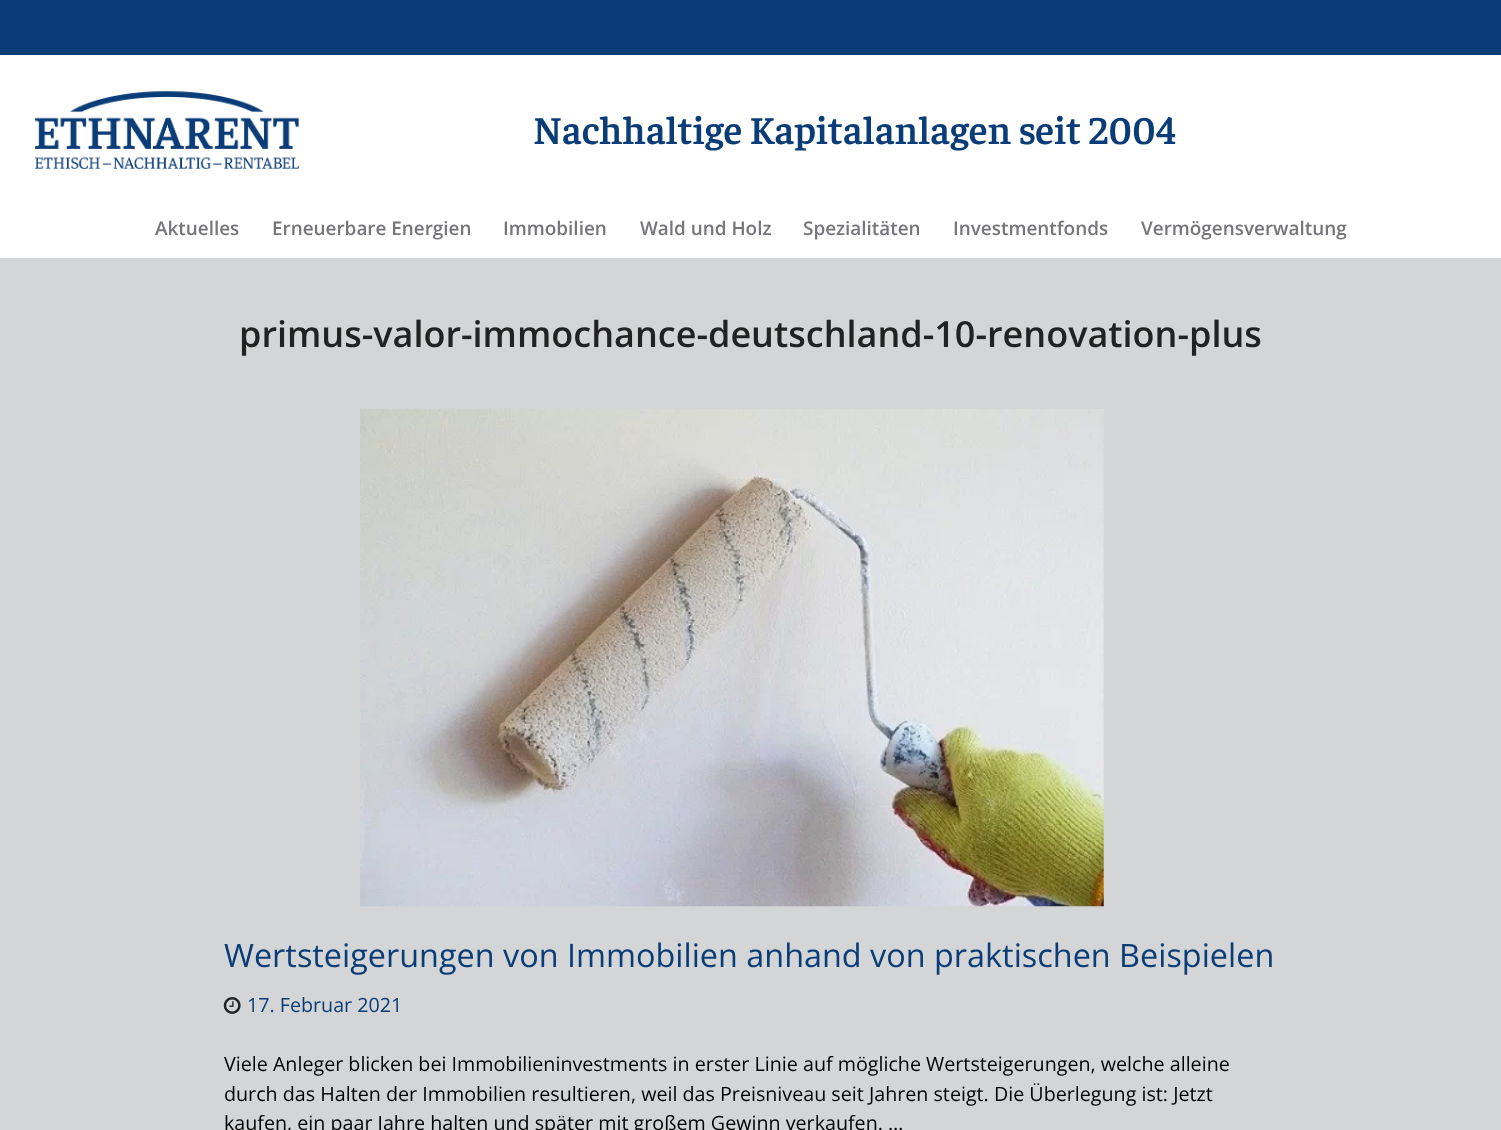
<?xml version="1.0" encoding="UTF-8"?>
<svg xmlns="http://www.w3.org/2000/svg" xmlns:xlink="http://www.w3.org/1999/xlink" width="1501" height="1130">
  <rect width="100%" height="100%" fill="#ffffff" />
  <rect width="1501" height="55" fill="#0a3c78" />
  <image x="35" y="91" width="264" height="78" xlink:href="image1.png" />
  <rect y="258" width="1501" height="872" fill="#d3d5d6" />
  <image x="360" y="408" width="744" height="499" xlink:href="image2.png" />
  <image x="223" y="997" width="18" height="17" xlink:href="image3.png" />
  <text x="533" y="144" style="font-family: Faustina; font-size: 39.6px; font-weight: 600; fill: #0a3c78">Nachhaltige Kapitalanlagen seit 2004</text>
  <text x="155" y="235" style="font-family: Open Sans; font-size: 18.9px; font-weight: 600; fill: #75757a">Aktuelles</text>
  <text x="272" y="235" style="font-family: Open Sans; font-size: 18.9px; font-weight: 600; fill: #75757a">Erneuerbare Energien</text>
  <text x="503" y="235" style="font-family: Open Sans; font-size: 18.9px; font-weight: 600; fill: #75757a">Immobilien</text>
  <text x="640" y="235" style="font-family: Open Sans; font-size: 18.9px; font-weight: 600; fill: #75757a">Wald und Holz</text>
  <text x="803" y="235" style="font-family: Open Sans; font-size: 18.9px; font-weight: 600; fill: #75757a">Spezialitäten</text>
  <text x="953" y="235" style="font-family: Open Sans; font-size: 18.9px; font-weight: 600; fill: #75757a">Investmentfonds</text>
  <text x="1141" y="235" style="font-family: Open Sans; font-size: 18.9px; font-weight: 600; fill: #75757a">Vermögensverwaltung</text>
  <text x="239" y="347" style="font-family: Open Sans; font-size: 36px; font-weight: 600; fill: #222222">primus-valor-immochance-deutschland-10-renovation-plus</text>
  <text x="224" y="967" style="font-family: Open Sans; font-size: 32.4px; fill: #0a3c78">Wertsteigerungen von Immobilien anhand von praktischen Beispielen</text>
  <text x="247" y="1012" style="font-family: Open Sans; font-size: 19.7px; fill: #0a3c78">17. Februar 2021</text>
  <text x="224" y="1071" style="font-family: Open Sans; font-size: 19.7px; fill: #000000">Viele Anleger blicken bei Immobilieninvestments in erster Linie auf mögliche Wertsteigerungen, welche alleine</text>
  <text x="224" y="1101" style="font-family: Open Sans; font-size: 19.7px; fill: #000000">durch das Halten der Immobilien resultieren, weil das Preisniveau seit Jahren steigt. Die Überlegung ist: Jetzt</text>
  <text x="224" y="1130" style="font-family: Open Sans; font-size: 19.7px; fill: #000000">kaufen, ein paar Jahre halten und später mit großem Gewinn verkaufen. …</text>
</svg>
